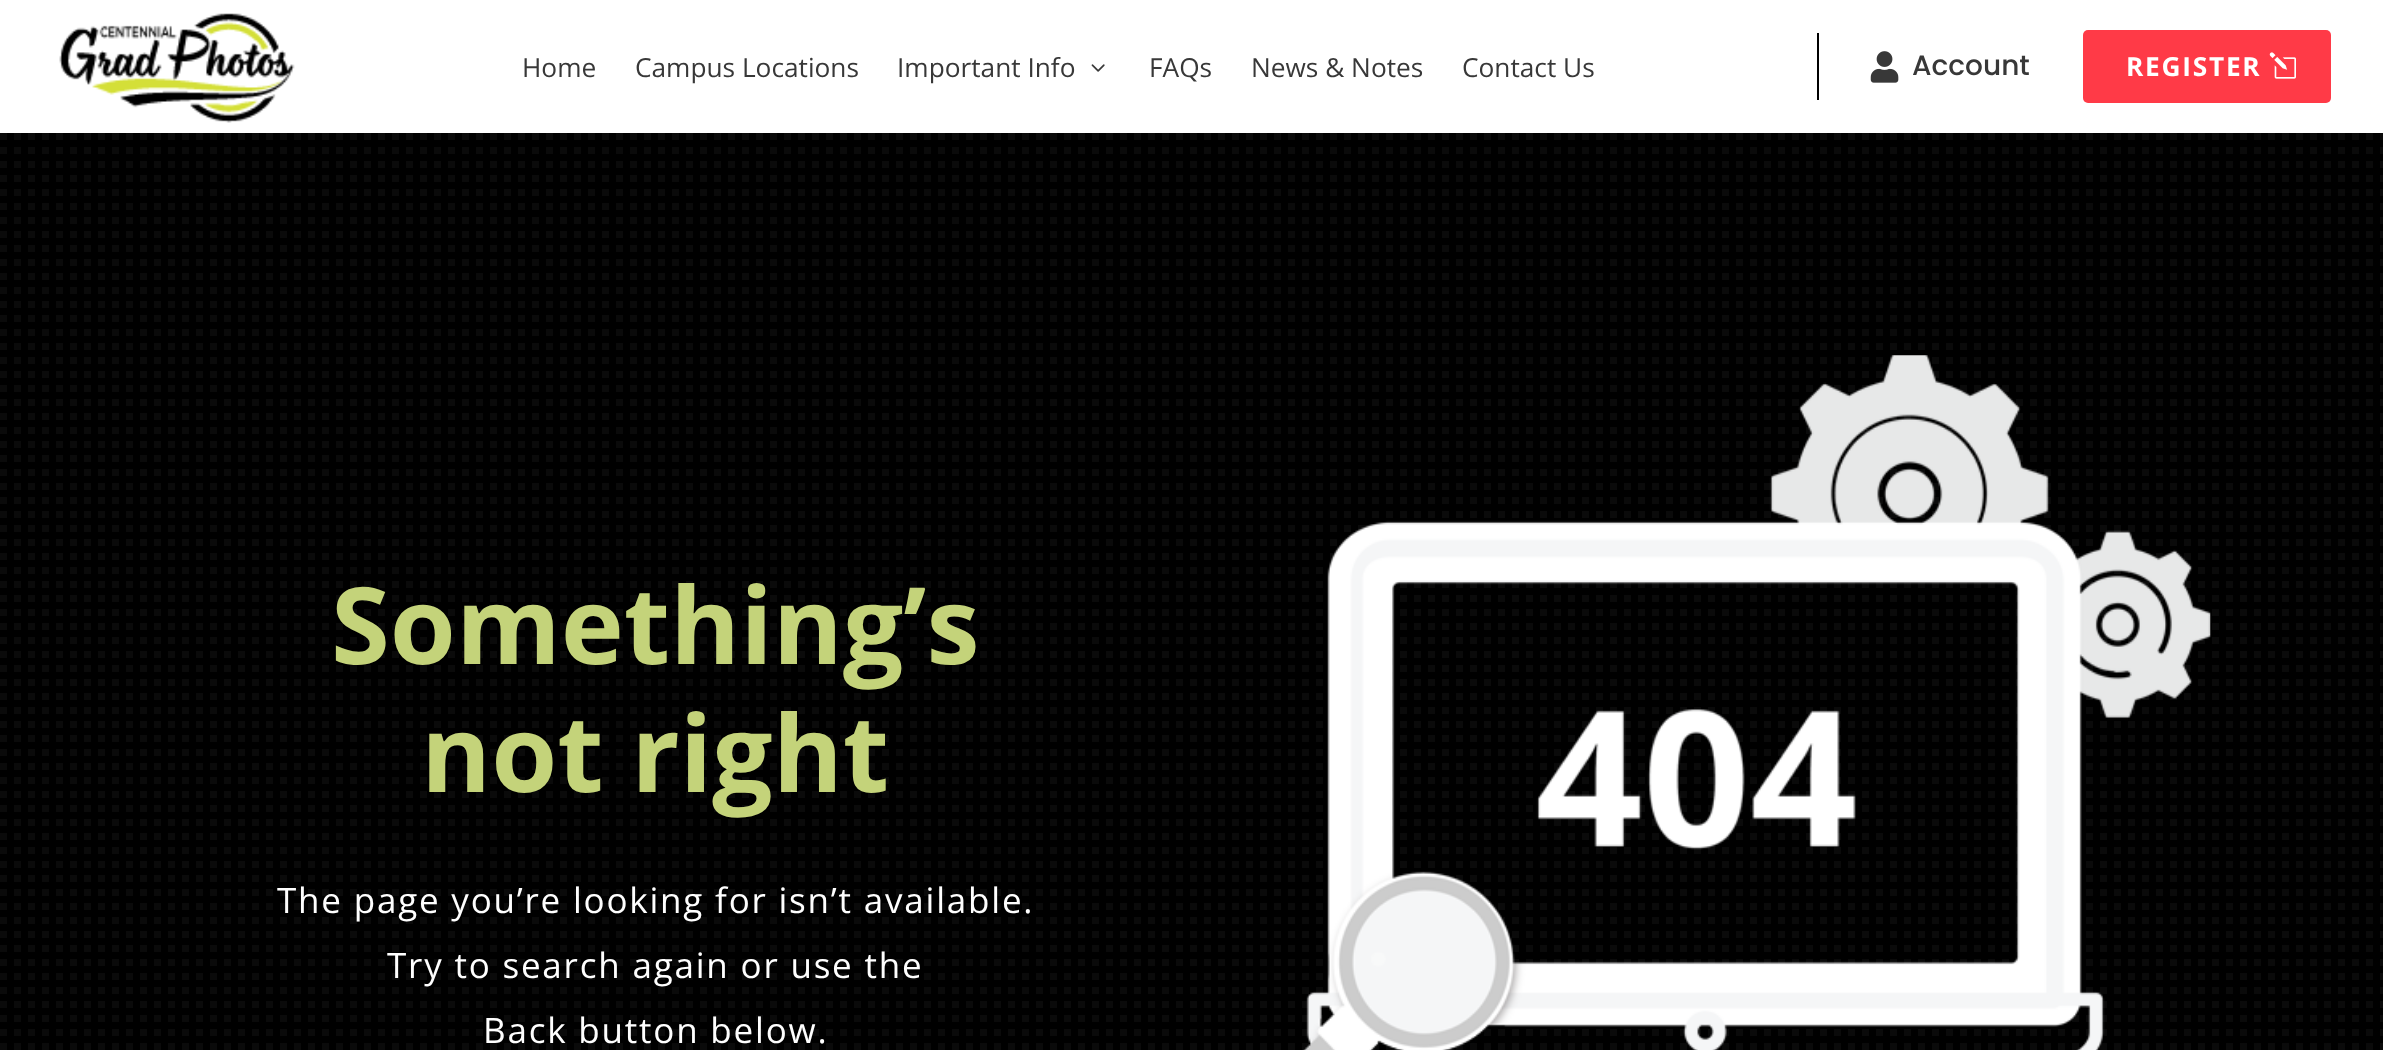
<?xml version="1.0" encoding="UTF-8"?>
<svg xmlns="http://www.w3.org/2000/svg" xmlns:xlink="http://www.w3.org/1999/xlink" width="2383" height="1050">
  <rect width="100%" height="100%" fill="#ffffff" />
  <image x="59" y="13" width="236" height="110" xlink:href="image1.png" />
  <image x="1091" y="64" width="14" height="8" xlink:href="image2.png" />
  <rect x="1817" y="33" width="2" height="67" fill="#000000" />
  <image x="1870" y="51" width="29" height="32" xlink:href="image3.png" />
  <rect x="2083" y="30" width="248" height="73" rx="5" fill="#ff3a47" />
  <image x="2269" y="52" width="27" height="27" xlink:href="image4.png" />
  <rect y="133" width="2383" height="917" fill="#000000" />
  <image x="0" y="133" width="2383" height="917" xlink:href="image5.png" />
  <image x="1303" y="355" width="908" height="695" xlink:href="image6.png" />
  <text x="522" y="77" style="font-family: Open Sans; font-size: 26.25px; fill: #383838">Home</text>
  <text x="635" y="77" style="font-family: Open Sans; font-size: 26.25px; fill: #383838">Campus Locations</text>
  <text x="897" y="77" style="font-family: Open Sans; font-size: 26.25px; fill: #383838">Important Info</text>
  <text x="1149" y="77" style="font-family: Open Sans; font-size: 26.25px; fill: #383838">FAQs</text>
  <text x="1251" y="77" style="font-family: Open Sans; font-size: 26.25px; fill: #383838">News &amp; Notes</text>
  <text x="1462" y="77" style="font-family: Open Sans; font-size: 26.25px; fill: #383838">Contact Us</text>
  <text x="1912" y="75" style="font-family: Poppins; font-size: 28px; font-weight: 500; fill: #383838">Account</text>
  <text x="2126" y="76" style="font-family: Open Sans; font-size: 26.25px; font-weight: bold; letter-spacing: 1.75px; fill: #ffffff">REGISTER</text>
  <text x="331" y="664" style="font-family: Open Sans; font-size: 106.75px; font-weight: bold; fill: #c4d37a">Something’s</text>
  <text x="421" y="792" style="font-family: Open Sans; font-size: 106.75px; font-weight: bold; fill: #c4d37a">not right</text>
  <text x="277" y="913" style="font-family: Open Sans; font-size: 35px; letter-spacing: 1.8px; fill: #ffffff">The page you’re looking for isn’t available.</text>
  <text x="387" y="978" style="font-family: Open Sans; font-size: 35px; letter-spacing: 1.8px; fill: #ffffff">Try to search again or use the</text>
  <text x="483" y="1043" style="font-family: Open Sans; font-size: 35px; letter-spacing: 1.8px; fill: #ffffff">Back button below.</text>
</svg>
